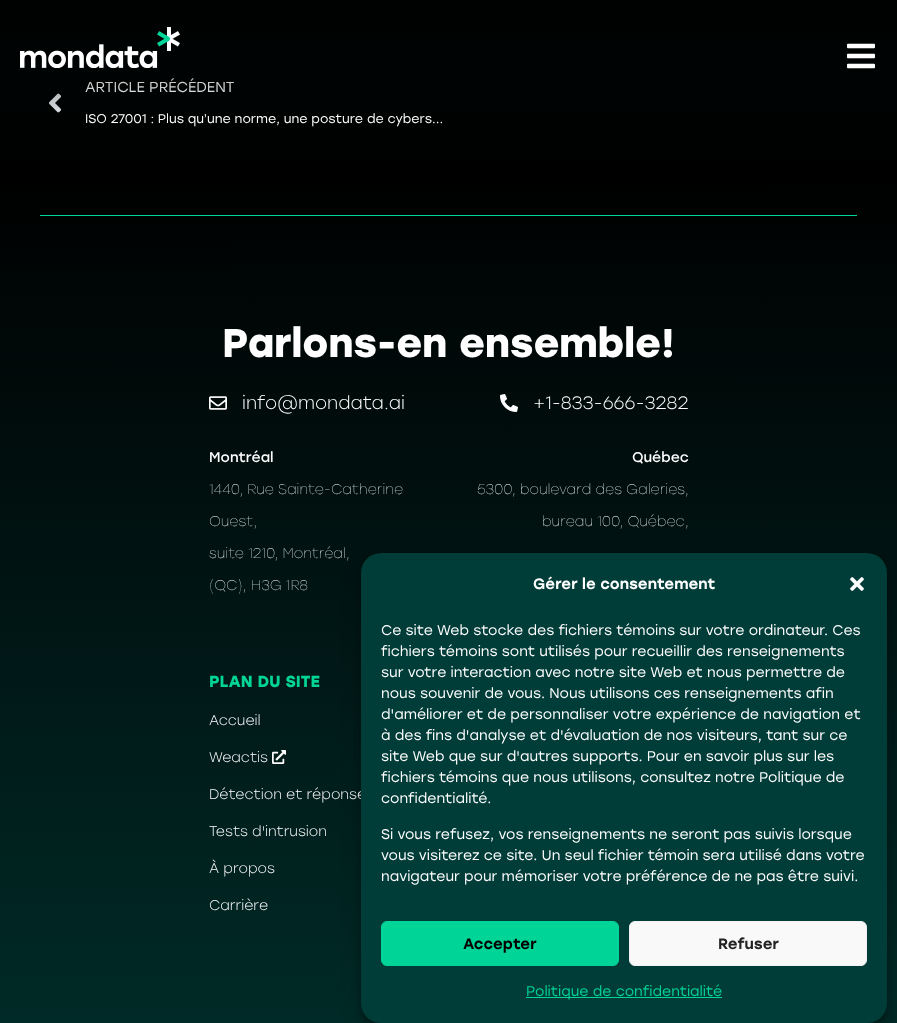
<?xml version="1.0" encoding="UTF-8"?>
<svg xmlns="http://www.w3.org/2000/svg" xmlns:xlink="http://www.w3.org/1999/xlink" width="897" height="1023">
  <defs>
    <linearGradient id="g1" gradientUnits="userSpaceOnUse" x1="448" y1="-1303" x2="449" y2="175"><stop offset="0" stop-color="#003c38" /><stop offset="1" stop-color="#000000" /></linearGradient>
    <linearGradient id="g2" gradientUnits="userSpaceOnUse" x1="448" y1="175" x2="449" y2="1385"><stop offset="0" stop-color="#000000" /><stop offset="1" stop-color="#003c38" /></linearGradient>
    <linearGradient id="g3" gradientUnits="userSpaceOnUse" x1="449" y1="0" x2="449" y2="112"><stop offset="0" stop-color="#000000" stop-opacity="0.8" /><stop offset="1" stop-color="#000000" stop-opacity="0" /></linearGradient>
  </defs>
  <rect width="100%" height="100%" fill="#ffffff" />
  <rect width="897" height="175" fill="url(#g1)" />
  <image x="49" y="93" width="12" height="20" xlink:href="image3.png" />
  <rect y="175" width="897" height="848" fill="url(#g2)" />
  <rect x="40" y="215" width="817" height="1" fill="#00d496" />
  <image x="209" y="396" width="18" height="14" xlink:href="image4.png" />
  <image x="500" y="394" width="18" height="18" xlink:href="image5.png" />
  <image x="272" y="750" width="14" height="14" xlink:href="image6.png" />
  <rect x="361" y="559" width="526" height="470" rx="20" fill="#000000" fill-opacity="0.23" filter="blur(3px)" />
  <rect x="361" y="563" width="526" height="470" rx="20" fill="#000000" fill-opacity="0.19" filter="blur(10px)" />
  <text x="85" y="92" style="font-family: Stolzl; font-size: 14.4px; fill: #ffffff">ARTICLE PRÉCÉDENT</text>
  <rect width="897" height="109" fill="url(#g3)" />
  <image x="847" y="43" width="28" height="26" xlink:href="image2.png" />
  <image x="20" y="27" width="160" height="41" xlink:href="image1.png" />
  <text x="85" y="123" style="font-family: Stolzl; font-size: 12.6px; fill: #ffffff">ISO 27001 : Plus qu</text>
  <text x="204" y="123" style="font-family: Liberation Sans; font-size: 12.6px; fill: #ffffff">’</text>
  <text x="207" y="123" style="font-family: Stolzl; font-size: 12.6px; fill: #ffffff">une norme, une posture de cybers...</text>
  <text x="222" y="357" style="font-family: Stolzl; font-size: 40px; font-weight: bold; fill: #ffffff">Parlons-en ensemble!</text>
  <text x="242" y="409" style="font-family: Stolzl; font-size: 18px; font-weight: 300; fill: #ffffff">info@mondata.ai</text>
  <text x="533" y="409" style="font-family: Stolzl; font-size: 18px; font-weight: 300; fill: #ffffff">+1-833-666-3282</text>
  <text x="209" y="462" style="font-family: 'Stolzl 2'; font-size: 14px; fill: #ffffff">Montréal</text>
  <text x="209" y="494" style="font-family: Stolzl; font-size: 14px; font-weight: 100; fill: #ffffff">1440, Rue Sainte-Catherine</text>
  <text x="209" y="526" style="font-family: Stolzl; font-size: 14px; font-weight: 100; fill: #ffffff">Ouest,</text>
  <text x="209" y="558" style="font-family: Stolzl; font-size: 14px; font-weight: 100; fill: #ffffff">suite 1210, Montréal,</text>
  <text x="209" y="590" style="font-family: Stolzl; font-size: 14px; font-weight: 100; fill: #ffffff">(QC), H3G 1R8</text>
  <text x="632" y="462" style="font-family: 'Stolzl 2'; font-size: 14px; fill: #ffffff">Québec</text>
  <text x="477" y="494" style="font-family: Stolzl; font-size: 14px; font-weight: 100; fill: #ffffff">5300, boulevard des Galeries,</text>
  <text x="542" y="526" style="font-family: Stolzl; font-size: 14px; font-weight: 100; fill: #ffffff">bureau 100, Québec,</text>
  <text x="209" y="687" style="font-family: Stolzl; font-size: 16px; font-weight: bold; fill: #00d496">PLAN DU SITE</text>
  <text x="209" y="725" style="font-family: Stolzl; font-size: 14px; font-weight: 300; fill: #ffffff">Accueil</text>
  <text x="209" y="762" style="font-family: Stolzl; font-size: 14px; font-weight: 300; fill: #ffffff">Weactis</text>
  <text x="209" y="799" style="font-family: Stolzl; font-size: 14px; font-weight: 300; fill: #ffffff">Détection et réponse</text>
  <text x="209" y="836" style="font-family: Stolzl; font-size: 14px; font-weight: 300; fill: #ffffff">Tests d'intrusion</text>
  <text x="209" y="873" style="font-family: Stolzl; font-size: 14px; font-weight: 300; fill: #ffffff">À propos</text>
  <text x="209" y="910" style="font-family: Stolzl; font-size: 14px; font-weight: 300; fill: #ffffff">Carrière</text>
  <rect x="361" y="553" width="526" height="470" rx="20" fill="#003c38" />
  <text x="533" y="589" style="font-family: Stolzl; font-size: 15px; font-weight: 500; fill: #ffffff">Gérer le consentement</text>
  <image x="850" y="577" width="14" height="14" xlink:href="image7.png" />
  <text x="381" y="635" style="font-family: Stolzl; font-size: 14px; fill: #ffffff">Ce site Web stocke des fichiers témoins sur votre ordinateur. Ces</text>
  <text x="381" y="656" style="font-family: Stolzl; font-size: 14px; fill: #ffffff">fichiers témoins sont utilisés pour recueillir des renseignements</text>
  <text x="381" y="677" style="font-family: Stolzl; font-size: 14px; fill: #ffffff">sur votre interaction avec notre site Web et nous permettre de</text>
  <text x="381" y="698" style="font-family: Stolzl; font-size: 14px; fill: #ffffff">nous souvenir de vous. Nous utilisons ces renseignements afin</text>
  <text x="381" y="719" style="font-family: Stolzl; font-size: 14px; fill: #ffffff">d'améliorer et de personnaliser votre expérience de navigation et</text>
  <text x="381" y="740" style="font-family: Stolzl; font-size: 14px; fill: #ffffff">à des fins d'analyse et d'évaluation de nos visiteurs, tant sur ce</text>
  <text x="381" y="761" style="font-family: Stolzl; font-size: 14px; fill: #ffffff">site Web que sur d'autres supports. Pour en savoir plus sur les</text>
  <text x="381" y="782" style="font-family: Stolzl; font-size: 14px; fill: #ffffff">fichiers témoins que nous utilisons, consultez notre Politique de</text>
  <text x="381" y="803" style="font-family: Stolzl; font-size: 14px; fill: #ffffff">confidentialité.</text>
  <text x="381" y="839" style="font-family: Stolzl; font-size: 14px; fill: #ffffff">Si vous refusez, vos renseignements ne seront pas suivis lorsque</text>
  <text x="381" y="860" style="font-family: Stolzl; font-size: 14px; fill: #ffffff">vous visiterez ce site. Un seul fichier témoin sera utilisé dans votre</text>
  <text x="381" y="881" style="font-family: Stolzl; font-size: 14px; fill: #ffffff">navigateur pour mémoriser votre préférence de ne pas être suivi.</text>
  <rect x="381.5" y="921.5" width="237" height="44" rx="5.5" fill="#00d496" stroke="#00d496" />
  <text x="463" y="949" style="font-family: Stolzl; font-size: 15px; font-weight: 500; fill: #000000">Accepter</text>
  <rect x="629.5" y="921.5" width="237" height="44" rx="5.5" fill="#f9f9f9" stroke="#f2f2f2" />
  <text x="718" y="949" style="font-family: Stolzl; font-size: 15px; font-weight: 500; fill: #222222">Refuser</text>
  <rect x="526" y="997" width="196" height="1" fill="#00d496" />
  <text x="526" y="996" style="font-family: Stolzl; font-size: 14px; fill: #00d496">Politique de confidentialité</text>
</svg>
